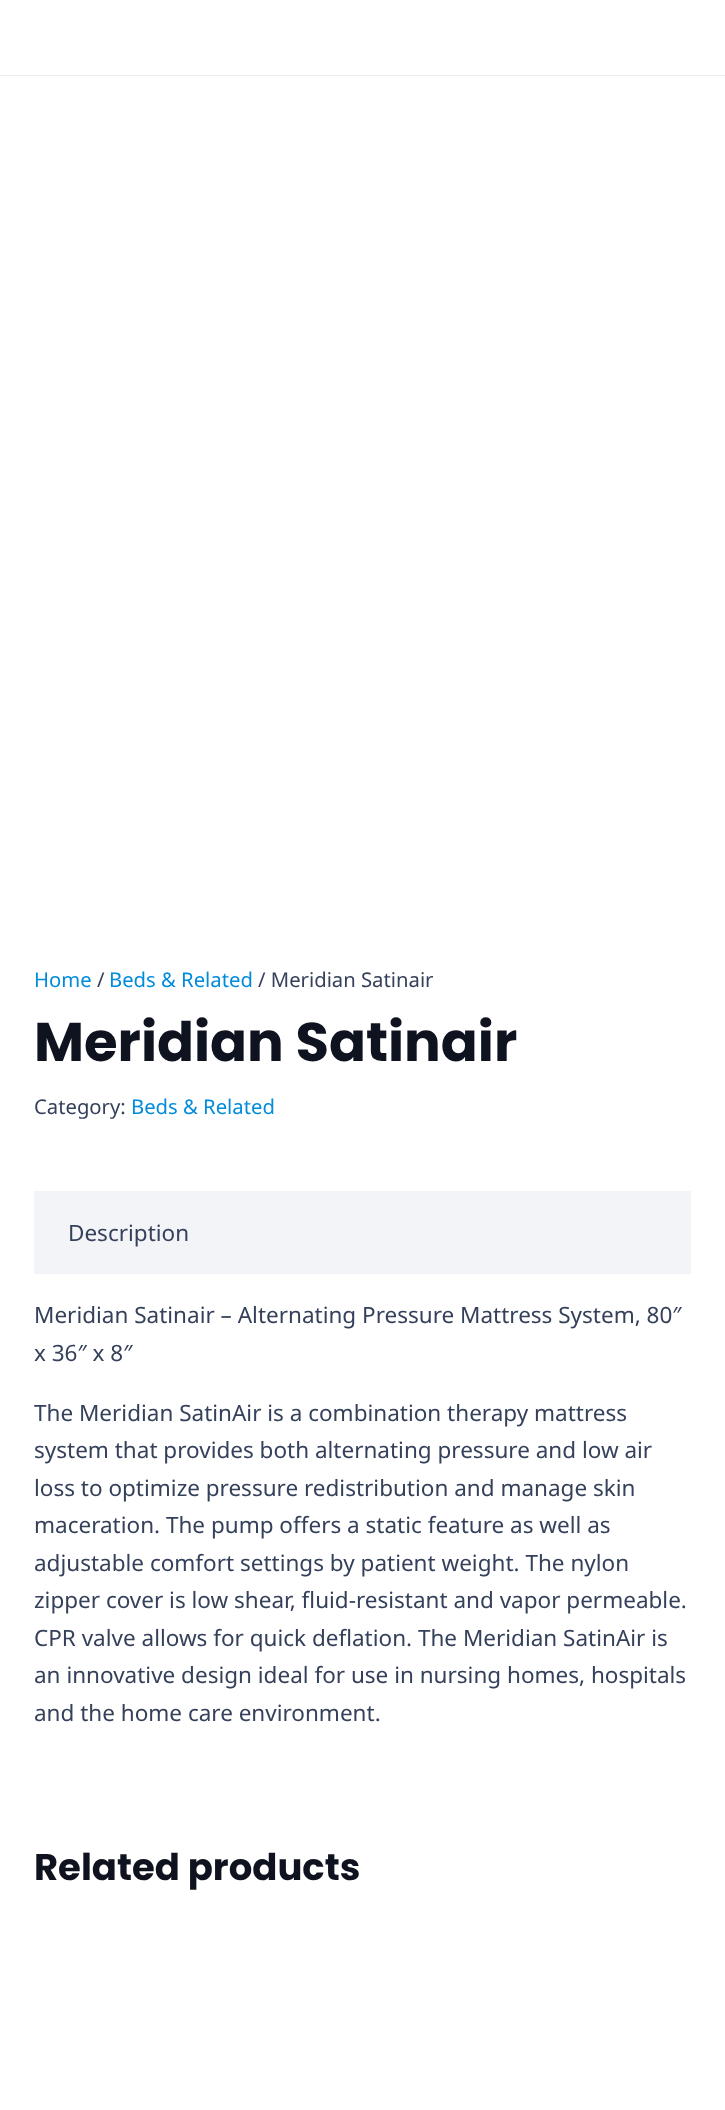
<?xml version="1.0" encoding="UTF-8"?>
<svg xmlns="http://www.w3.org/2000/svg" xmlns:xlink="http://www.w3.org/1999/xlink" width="725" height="2110">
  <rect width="100%" height="100%" fill="#ffffff" />
  <rect y="75" width="725" height="1" fill="#ebebeb" />
  <rect x="34" y="1191" width="657" height="83" fill="#f2f4f7" />
  <text x="34" y="987" style="font-family: Noto Sans; font-size: 20.25px; fill: #008bdb">Home</text>
  <text x="97" y="987" style="font-family: Noto Sans; font-size: 20.25px; fill: #35415b">/</text>
  <text x="109" y="987" style="font-family: Noto Sans; font-size: 20.25px; fill: #008bdb">Beds &amp; Related</text>
  <text x="258" y="987" style="font-family: Noto Sans; font-size: 20.25px; fill: #35415b">/ Meridian Satinair</text>
  <text x="34" y="1061" style="font-family: Poppins; font-size: 54.5px; font-weight: bold; fill: #0f131f">Meridian Satinair</text>
  <text x="34" y="1114" style="font-family: Noto Sans; font-size: 20.25px; fill: #35415b">Category:</text>
  <text x="131" y="1114" style="font-family: Noto Sans; font-size: 20.25px; fill: #008bdb">Beds &amp; Related</text>
  <text x="68" y="1241" style="font-family: Noto Sans; font-size: 22.5px; fill: #35415b">Description</text>
  <text x="34" y="1323" style="font-family: Noto Sans; font-size: 22.5px; fill: #35415b">Meridian Satinair – Alternating Pressure Mattress System, 80″</text>
  <text x="34" y="1361" style="font-family: Noto Sans; font-size: 22.5px; fill: #35415b">x 36″ x 8″</text>
  <text x="34" y="1421" style="font-family: Noto Sans; font-size: 22.5px; fill: #35415b">The Meridian SatinAir is a combination therapy mattress</text>
  <text x="34" y="1458" style="font-family: Noto Sans; font-size: 22.5px; fill: #35415b">system that provides both alternating pressure and low air</text>
  <text x="34" y="1496" style="font-family: Noto Sans; font-size: 22.5px; fill: #35415b">loss to optimize pressure redistribution and manage skin</text>
  <text x="34" y="1533" style="font-family: Noto Sans; font-size: 22.5px; fill: #35415b">maceration. The pump offers a static feature as well as</text>
  <text x="34" y="1571" style="font-family: Noto Sans; font-size: 22.5px; fill: #35415b">adjustable comfort settings by patient weight. The nylon</text>
  <text x="34" y="1608" style="font-family: Noto Sans; font-size: 22.5px; fill: #35415b">zipper cover is low shear, fluid-resistant and vapor permeable.</text>
  <text x="34" y="1646" style="font-family: Noto Sans; font-size: 22.5px; fill: #35415b">CPR valve allows for quick deflation. The Meridian SatinAir is</text>
  <text x="34" y="1683" style="font-family: Noto Sans; font-size: 22.5px; fill: #35415b">an innovative design ideal for use in nursing homes, hospitals</text>
  <text x="34" y="1721" style="font-family: Noto Sans; font-size: 22.5px; fill: #35415b">and the home care environment.</text>
  <text x="34" y="1880" style="font-family: Poppins; font-size: 37px; font-weight: bold; fill: #0f131f">Related products</text>
</svg>
